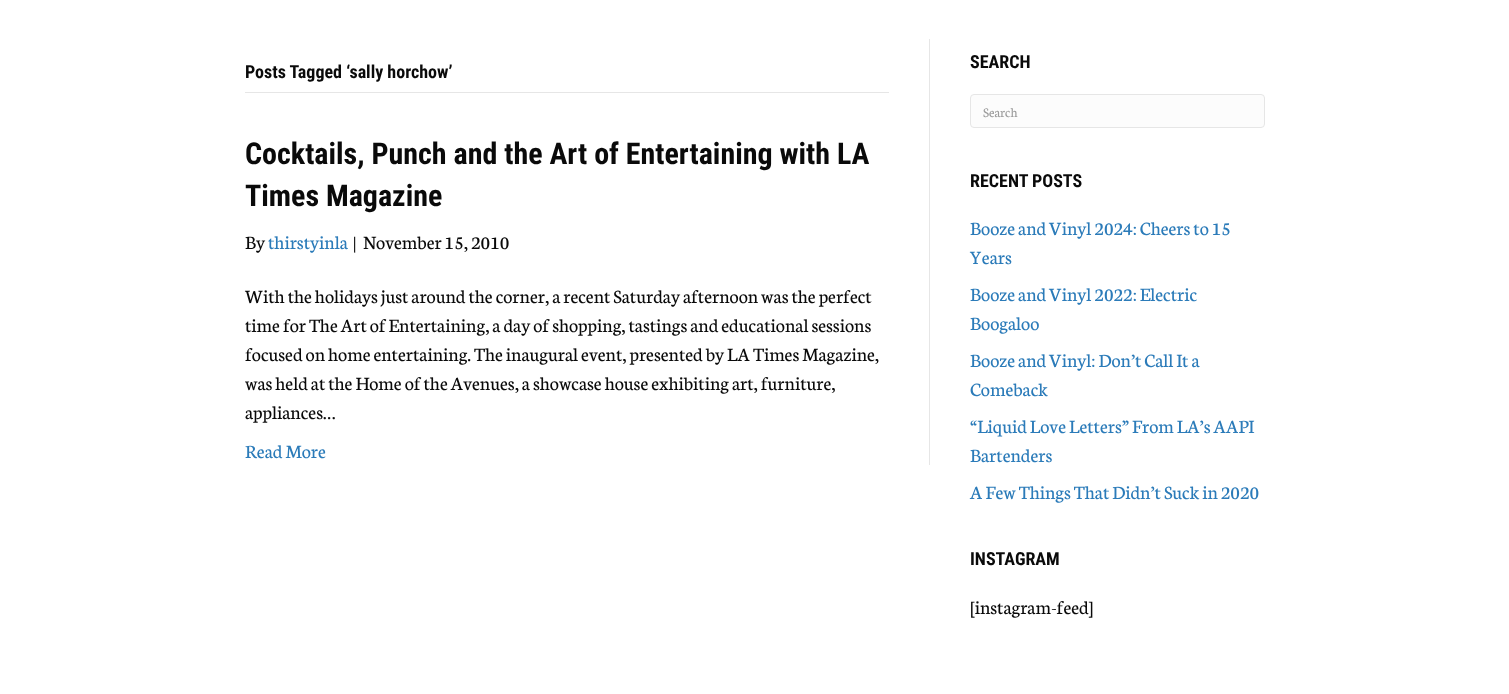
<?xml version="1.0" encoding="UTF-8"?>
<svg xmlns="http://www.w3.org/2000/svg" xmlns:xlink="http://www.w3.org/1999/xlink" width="1509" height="694">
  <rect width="100%" height="100%" fill="#ffffff" />
  <rect x="929" y="39" width="1" height="426" fill="#e6e6e6" />
  <rect x="245" y="92" width="644" height="1" fill="#e6e6e6" />
  <rect x="970.5" y="94.5" width="294" height="33" rx="3.5" fill="#fcfcfc" stroke="#e6e6e6" />
  <text x="245" y="78" style="font-family: Roboto Condensed; font-size: 18px; font-weight: bold; fill: #0a0a0a">Posts Tagged ‘sally horchow’</text>
  <text x="245" y="164" style="font-family: Roboto Condensed; font-size: 30px; font-weight: bold; fill: #0a0a0a">Cocktails, Punch and the Art of Entertaining with LA</text>
  <text x="245" y="206" style="font-family: Roboto Condensed; font-size: 30px; font-weight: bold; fill: #0a0a0a">Times Magazine</text>
  <text x="245" y="249" style="font-family: Neuton; font-size: 20px; fill: #0a0a0a">By</text>
  <text x="268" y="249" style="font-family: Neuton; font-size: 20px; fill: #2b7bb9">thirstyinla</text>
  <text x="353" y="249" style="font-family: Neuton; font-size: 20px; fill: #0a0a0a">|</text>
  <text x="363" y="249" style="font-family: Neuton; font-size: 20px; fill: #0a0a0a">November 15, 2010</text>
  <text x="245" y="303" style="font-family: Neuton; font-size: 20px; fill: #0a0a0a">With the holidays just around the corner, a recent Saturday afternoon was the perfect</text>
  <text x="245" y="332" style="font-family: Neuton; font-size: 20px; fill: #0a0a0a">time for The Art of Entertaining, a day of shopping, tastings and educational sessions</text>
  <text x="245" y="361" style="font-family: Neuton; font-size: 20px; fill: #0a0a0a">focused on home entertaining. The inaugural event, presented by LA Times Magazine,</text>
  <text x="245" y="390" style="font-family: Neuton; font-size: 20px; fill: #0a0a0a">was held at the Home of the Avenues, a showcase house exhibiting art, furniture,</text>
  <text x="245" y="419" style="font-family: Neuton; font-size: 20px; fill: #0a0a0a">appliances…</text>
  <text x="245" y="458" style="font-family: Neuton; font-size: 20px; fill: #2b7bb9">Read More</text>
  <text x="970" y="68" style="font-family: Roboto Condensed; font-size: 18px; font-weight: bold; fill: #0a0a0a">SEARCH</text>
  <text x="983" y="117" style="font-family: Neuton; font-size: 14px; fill: #9b9b9b">Search</text>
  <text x="970" y="187" style="font-family: Roboto Condensed; font-size: 18px; font-weight: bold; fill: #0a0a0a">RECENT POSTS</text>
  <text x="970" y="235" style="font-family: Neuton; font-size: 20px; fill: #2b7bb9">Booze and Vinyl 2024: Cheers to 15</text>
  <text x="970" y="264" style="font-family: Neuton; font-size: 20px; fill: #2b7bb9">Years</text>
  <text x="970" y="301" style="font-family: Neuton; font-size: 20px; fill: #2b7bb9">Booze and Vinyl 2022: Electric</text>
  <text x="970" y="330" style="font-family: Neuton; font-size: 20px; fill: #2b7bb9">Boogaloo</text>
  <text x="970" y="367" style="font-family: Neuton; font-size: 20px; fill: #2b7bb9">Booze and Vinyl: Don’t Call It a</text>
  <text x="970" y="396" style="font-family: Neuton; font-size: 20px; fill: #2b7bb9">Comeback</text>
  <text x="970" y="433" style="font-family: Neuton; font-size: 20px; fill: #2b7bb9">“Liquid Love Letters” From LA’s AAPI</text>
  <text x="970" y="462" style="font-family: Neuton; font-size: 20px; fill: #2b7bb9">Bartenders</text>
  <text x="970" y="499" style="font-family: Neuton; font-size: 20px; fill: #2b7bb9">A Few Things That Didn’t Suck in 2020</text>
  <text x="970" y="565" style="font-family: Roboto Condensed; font-size: 18px; font-weight: bold; fill: #0a0a0a">INSTAGRAM</text>
  <text x="970" y="614" style="font-family: Neuton; font-size: 20px; fill: #0a0a0a">[instagram-feed]</text>
</svg>
